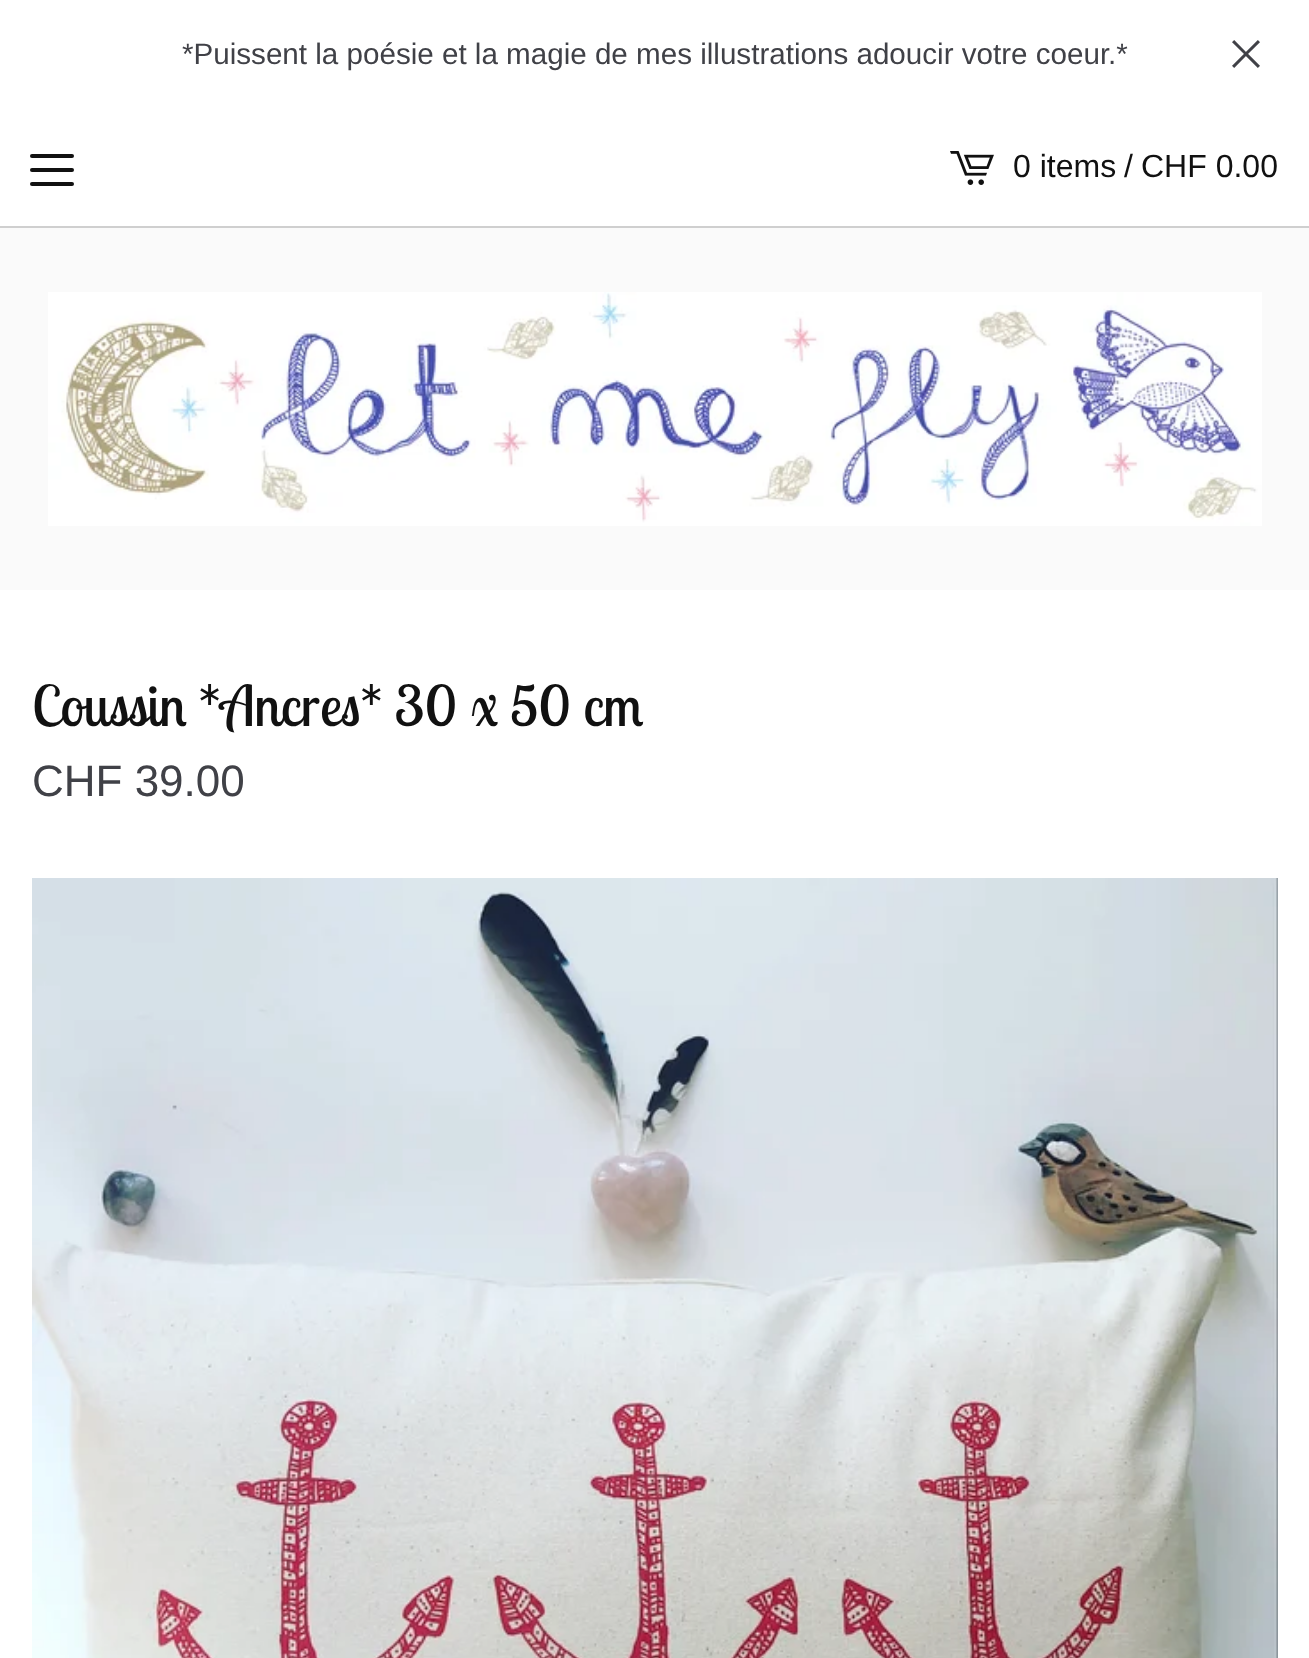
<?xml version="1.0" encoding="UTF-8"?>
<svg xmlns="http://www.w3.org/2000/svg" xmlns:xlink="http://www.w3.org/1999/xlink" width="1309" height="1658">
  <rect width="100%" height="100%" fill="#ffffff" />
  <image x="1232" y="40" width="28" height="28" xlink:href="image1.png" />
  <rect y="226" width="1309" height="2" fill="#cfcfcf" />
  <rect x="30" y="154" width="44" height="4" rx="2" fill="#111111" />
  <rect x="30" y="168" width="44" height="4" rx="2" fill="#111111" />
  <rect x="30" y="182" width="44" height="4" rx="2" fill="#111111" />
  <image x="950" y="151" width="44" height="34" xlink:href="image2.png" />
  <rect y="228" width="1309" height="362" fill="#fafafa" />
  <image x="48" y="292" width="1214" height="234" xlink:href="image3.png" />
  <image x="32" y="878" width="1246" height="780" xlink:href="image4.png" />
  <text x="182" y="64" style="font-family: Liberation Sans; font-size: 29.6px; fill: #404147">*Puissent la poésie et la magie de mes illustrations adoucir votre coeur.*</text>
  <text x="1013" y="177" style="font-family: Liberation Sans; font-size: 32px; fill: #111111">0 items</text>
  <text x="1124" y="177" style="font-family: Liberation Sans; font-size: 32px; fill: #111111">/</text>
  <text x="1141" y="177" style="font-family: Liberation Sans; font-size: 32px; fill: #111111">CHF 0.00</text>
  <text x="32" y="726" style="font-family: Lobster Two; font-size: 56px; fill: #111111">Coussin *Ancres* 30 x 50 cm</text>
  <text x="32" y="796" style="font-family: Liberation Sans; font-size: 44px; fill: #404147">CHF 39.00</text>
</svg>
